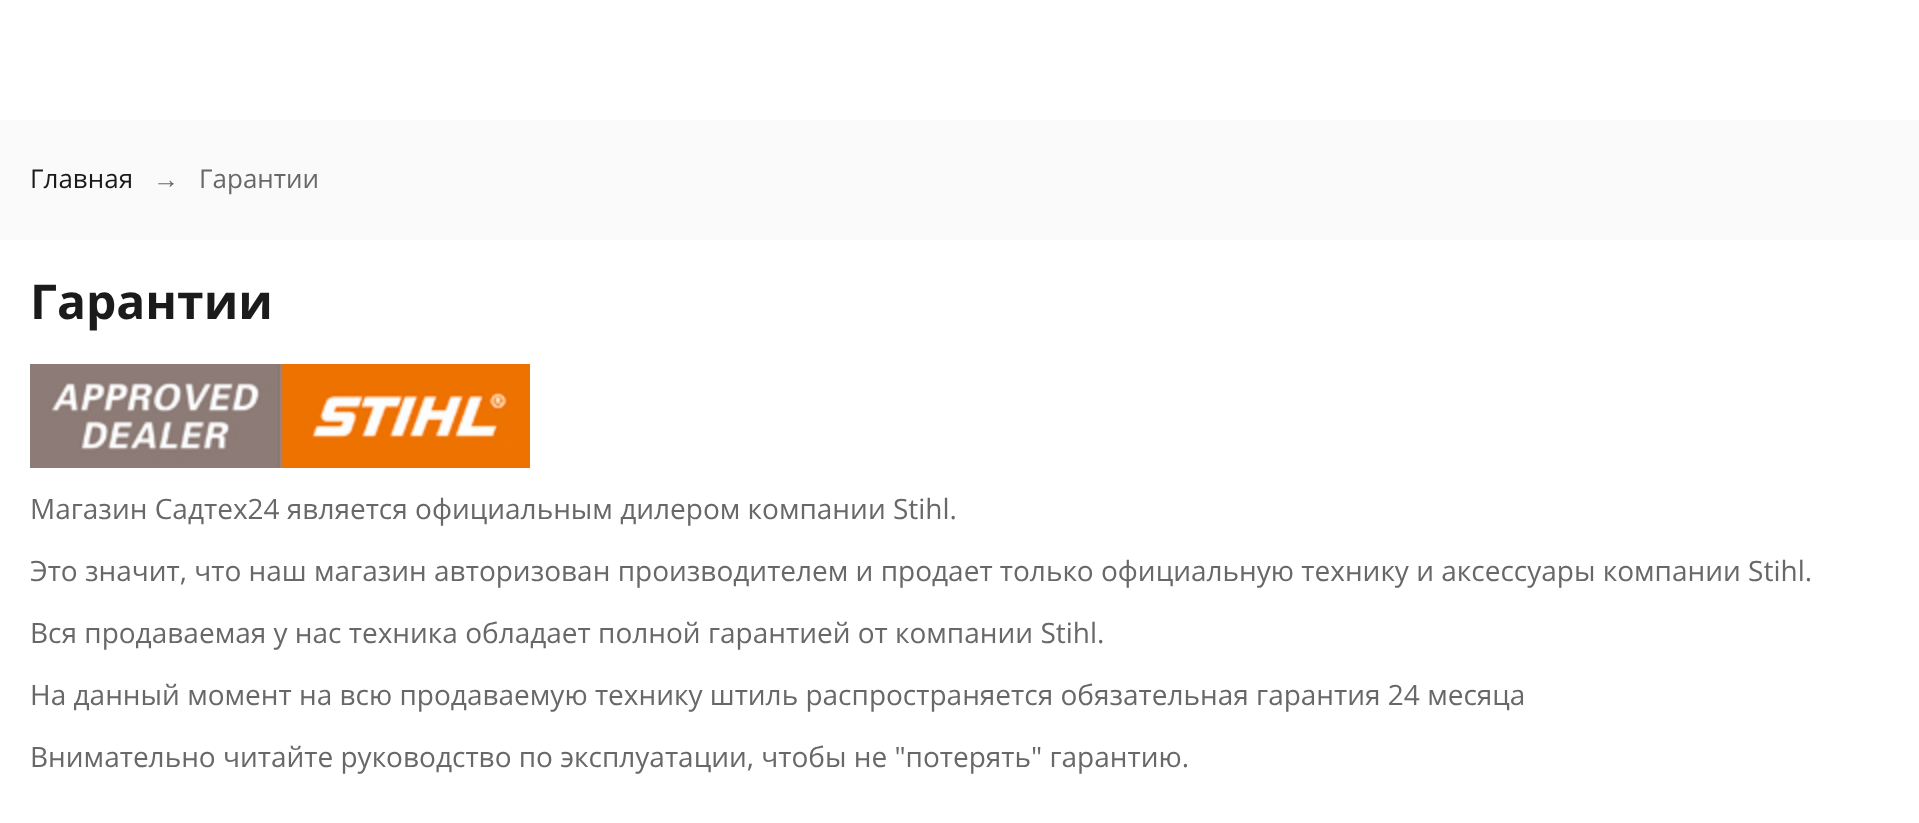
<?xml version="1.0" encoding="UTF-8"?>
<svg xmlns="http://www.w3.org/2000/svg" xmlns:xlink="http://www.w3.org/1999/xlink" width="1919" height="823">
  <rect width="100%" height="100%" fill="#ffffff" />
  <rect y="120" width="1919" height="120" fill="#fafafa" />
  <image x="30" y="364" width="500" height="104" xlink:href="image1.png" />
  <text x="30" y="188" style="font-family: Open Sans; font-size: 26px; fill: #1b1b1b">Главная</text>
  <text x="153" y="188" style="font-family: Liberation Sans; font-size: 26px; fill: #686868">→</text>
  <text x="199" y="188" style="font-family: Open Sans; font-size: 26px; fill: #686868">Гарантии</text>
  <text x="30" y="319" style="font-family: Open Sans; font-size: 48px; font-weight: bold; fill: #1b1b1b">Гарантии</text>
  <text x="30" y="519" style="font-family: Open Sans; font-size: 28px; fill: #686868">Магазин Садтех24 является официальным дилером компании Stihl.</text>
  <text x="30" y="581" style="font-family: Open Sans; font-size: 28px; fill: #686868">Это значит, что наш магазин авторизован производителем и продает только официальную технику и аксессуары компании Stihl.</text>
  <text x="30" y="643" style="font-family: Open Sans; font-size: 28px; fill: #686868">Вся продаваемая у нас техника обладает полной гарантией от компании Stihl.</text>
  <text x="30" y="705" style="font-family: Open Sans; font-size: 28px; fill: #686868">На данный момент на всю продаваемую технику штиль распространяется обязательная гарантия 24 месяца</text>
  <text x="30" y="767" style="font-family: Open Sans; font-size: 28px; fill: #686868">Внимательно читайте руководство по эксплуатации, чтобы не "потерять" гарантию.</text>
</svg>
